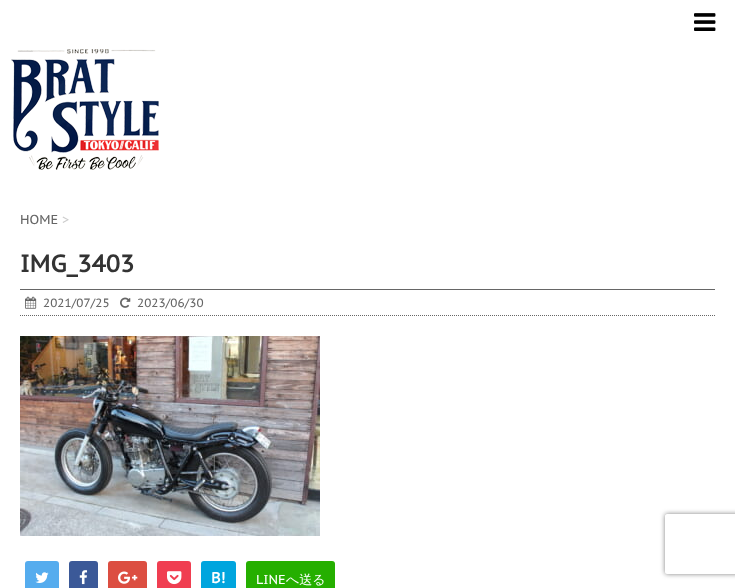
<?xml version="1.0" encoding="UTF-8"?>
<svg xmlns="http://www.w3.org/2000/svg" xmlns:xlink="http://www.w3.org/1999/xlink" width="735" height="588">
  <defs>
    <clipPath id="clip1"><path d="M 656 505 h 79 v 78 h -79 z m 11 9 h 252 c 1 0 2 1 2 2 v 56 c 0 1 -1 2 -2 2 h -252 c -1 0 -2 -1 -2 -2 v -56 c 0 -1 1 -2 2 -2 z" clip-rule="evenodd" /></clipPath>
  </defs>
  <rect width="100%" height="100%" fill="#ffffff" />
  <image x="694" y="13" width="22" height="18" xlink:href="image1.png" />
  <image x="11" y="49" width="148" height="121" xlink:href="image2.png" />
  <rect x="20" y="289" width="695" height="1" fill="#666666" />
  <path d="M 20 315.5 h 695" fill="none" stroke="#666666" stroke-dasharray="1 1" />
  <image x="25" y="296" width="12" height="13" xlink:href="image3.png" />
  <image x="120" y="297" width="11" height="11" xlink:href="image4.png" />
  <image x="20" y="336" width="300" height="200" xlink:href="image5.png" />
  <rect x="25" y="561" width="34" height="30" rx="3" fill="#55acee" />
  <image x="35" y="572" width="14" height="11" xlink:href="image6.png" />
  <rect x="69" y="561" width="29" height="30" rx="3" fill="#3b5998" />
  <image x="79" y="570" width="9" height="15" xlink:href="image7.png" />
  <rect x="108" y="561" width="39" height="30" rx="3" fill="#dc4e41" />
  <image x="118" y="571" width="20" height="13" xlink:href="image8.png" />
  <rect x="157" y="561" width="34" height="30" rx="3" fill="#f03e51" />
  <image x="167" y="571" width="15" height="14" xlink:href="image9.png" />
  <rect x="201" y="561" width="35" height="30" rx="3" fill="#00a5de" />
  <rect x="246" y="561" width="89" height="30" rx="3" fill="#25af00" />
  <g clip-path="url(#clip1)">
    <rect x="665" y="514" width="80" height="60" rx="2" fill="#808080" filter="blur(2.5px)" />
  </g>
  <text x="20" y="224" style="font-family: PT Sans Caption; font-size: 13px; fill: #666666">HOME</text>
  <text x="62" y="224" style="font-family: PT Sans Caption; font-size: 13px; fill: #cccccc">&gt;</text>
  <text x="20" y="272" style="font-family: PT Sans Caption; font-size: 24px; font-weight: bold; fill: #333333">IMG_3403</text>
  <text x="43" y="307" style="font-family: PT Sans Caption; font-size: 12px; fill: #666666">2021/07/25</text>
  <text x="137" y="307" style="font-family: PT Sans Caption; font-size: 12px; fill: #666666">2023/06/30</text>
  <text x="211" y="583" style="font-family: PT Sans Caption; font-size: 15px; font-weight: bold; fill: #ffffff">B!</text>
  <text x="256" y="584" style="font-family: PT Sans Caption; font-size: 13px; fill: #ffffff">LINE</text>
  <text x="286" y="584" style="font-family: WenQuanYi Zen Hei; font-size: 13px; font-weight: 500; fill: #ffffff">へ送る</text>
</svg>
